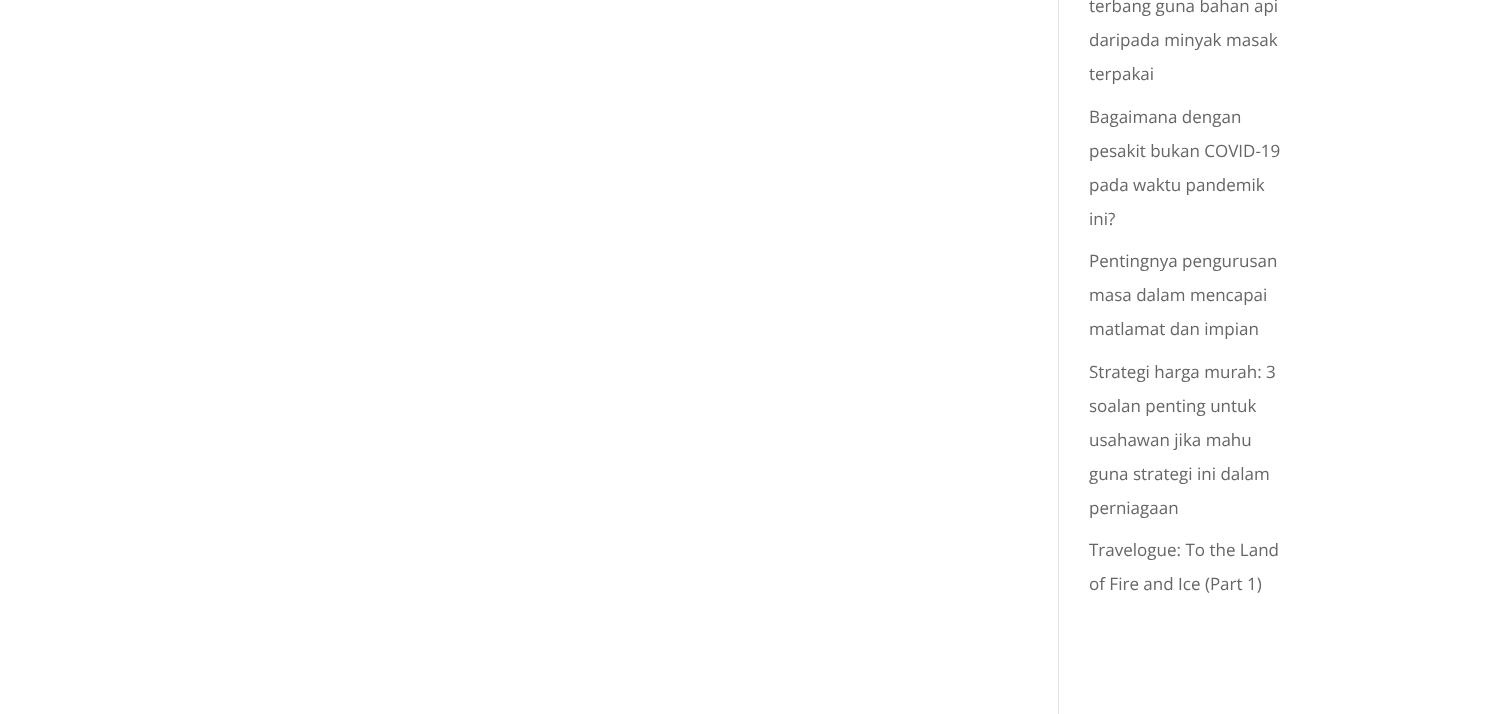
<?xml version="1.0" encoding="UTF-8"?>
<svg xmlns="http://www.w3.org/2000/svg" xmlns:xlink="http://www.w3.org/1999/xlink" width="1488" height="714">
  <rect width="100%" height="100%" fill="#ffffff" />
  <rect x="1058" width="1" height="714" fill="#e2e2e2" />
  <text x="1089" y="12" style="font-family: Open Sans; font-size: 17px; fill: #666666">terbang guna bahan api</text>
  <text x="1089" y="46" style="font-family: Open Sans; font-size: 17px; fill: #666666">daripada minyak masak</text>
  <text x="1089" y="80" style="font-family: Open Sans; font-size: 17px; fill: #666666">terpakai</text>
  <text x="1089" y="123" style="font-family: Open Sans; font-size: 17px; fill: #666666">Bagaimana dengan</text>
  <text x="1089" y="157" style="font-family: Open Sans; font-size: 17px; fill: #666666">pesakit bukan COVID-19</text>
  <text x="1089" y="191" style="font-family: Open Sans; font-size: 17px; fill: #666666">pada waktu pandemik</text>
  <text x="1089" y="225" style="font-family: Open Sans; font-size: 17px; fill: #666666">ini?</text>
  <text x="1089" y="267" style="font-family: Open Sans; font-size: 17px; fill: #666666">Pentingnya pengurusan</text>
  <text x="1089" y="301" style="font-family: Open Sans; font-size: 17px; fill: #666666">masa dalam mencapai</text>
  <text x="1089" y="335" style="font-family: Open Sans; font-size: 17px; fill: #666666">matlamat dan impian</text>
  <text x="1089" y="378" style="font-family: Open Sans; font-size: 17px; fill: #666666">Strategi harga murah: 3</text>
  <text x="1089" y="412" style="font-family: Open Sans; font-size: 17px; fill: #666666">soalan penting untuk</text>
  <text x="1089" y="446" style="font-family: Open Sans; font-size: 17px; fill: #666666">usahawan jika mahu</text>
  <text x="1089" y="480" style="font-family: Open Sans; font-size: 17px; fill: #666666">guna strategi ini dalam</text>
  <text x="1089" y="514" style="font-family: Open Sans; font-size: 17px; fill: #666666">perniagaan</text>
  <text x="1089" y="556" style="font-family: Open Sans; font-size: 17px; fill: #666666">Travelogue: To the Land</text>
  <text x="1089" y="590" style="font-family: Open Sans; font-size: 17px; fill: #666666">of Fire and Ice (Part 1)</text>
</svg>
